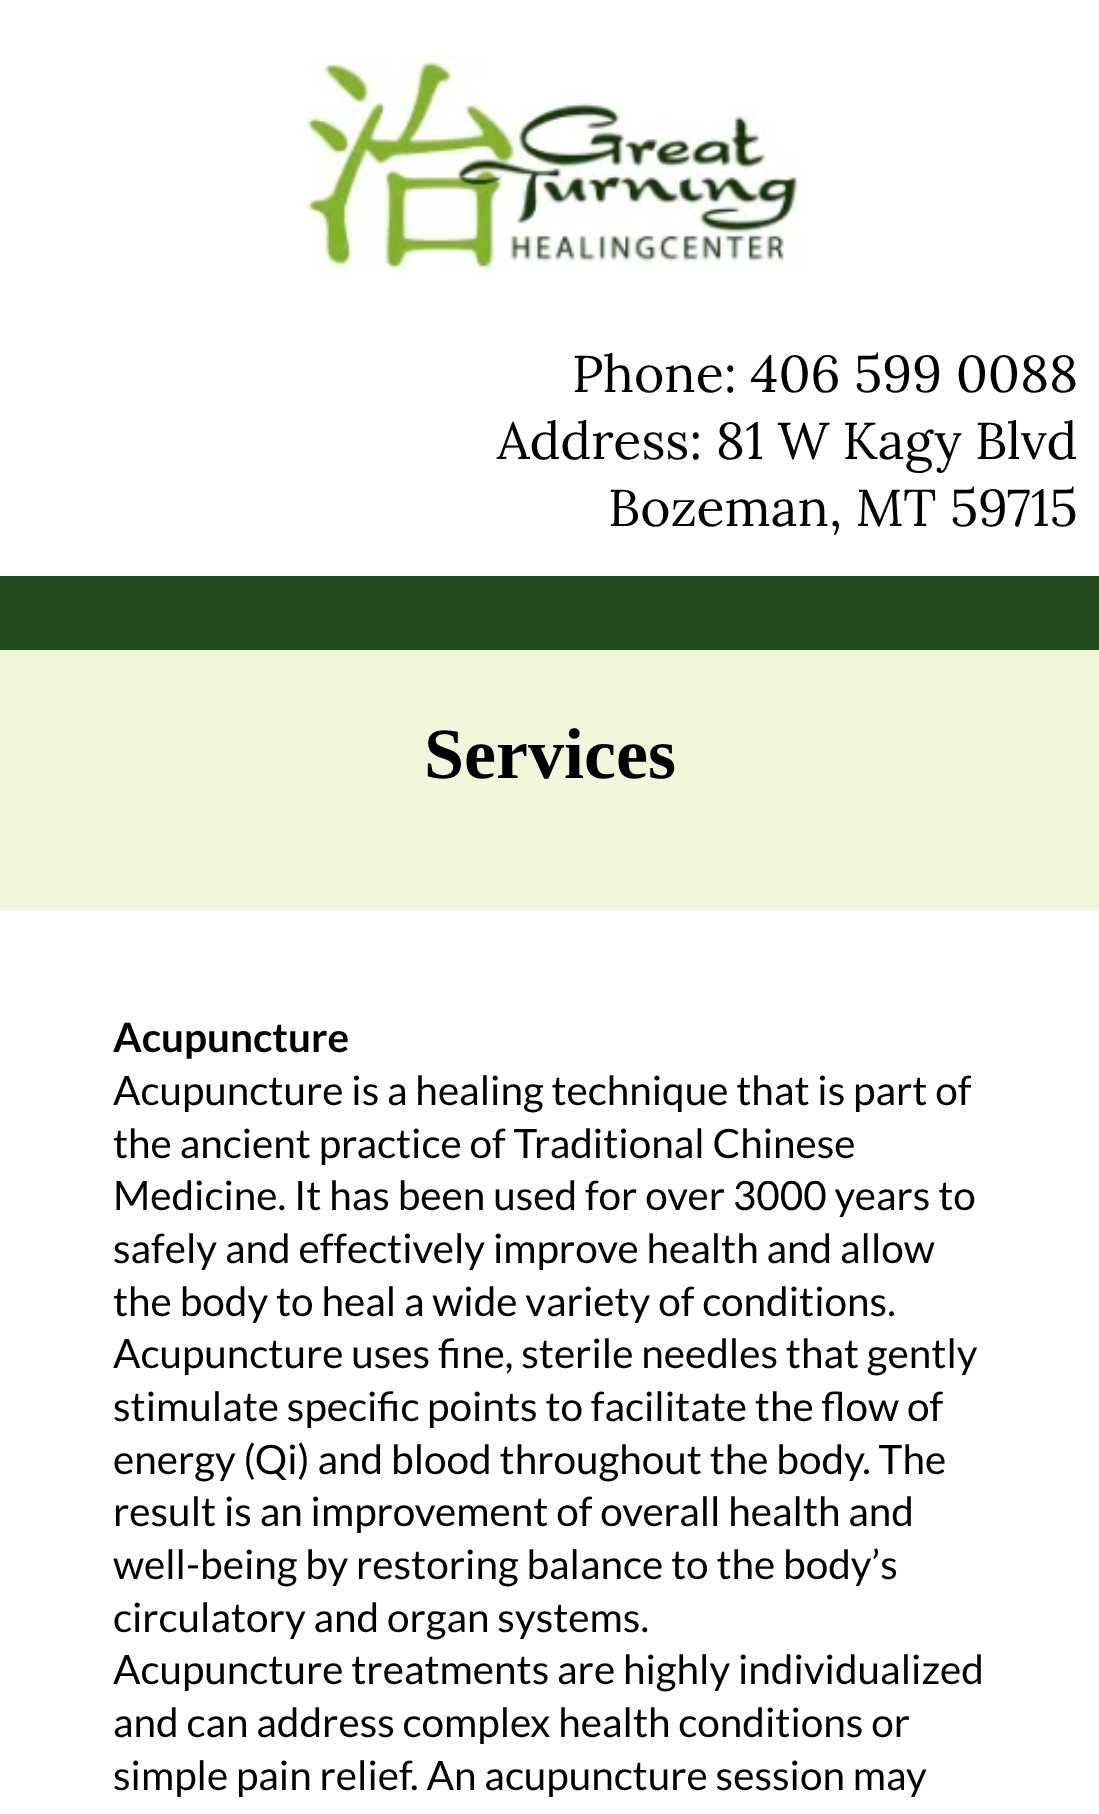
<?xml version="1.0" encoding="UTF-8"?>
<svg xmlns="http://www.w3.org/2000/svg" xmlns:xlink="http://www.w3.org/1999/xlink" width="1099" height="1814">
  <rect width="100%" height="100%" fill="#ffffff" />
  <image x="305" y="56" width="496" height="217" xlink:href="image1.png" />
  <rect y="576" width="1099" height="74" fill="#234d20" />
  <rect y="650" width="1099" height="261" fill="#f0f7da" />
  <text x="572" y="392" style="font-family: Lora; font-size: 51.75px; fill: #000000">Phone: 406 599 0088</text>
  <text x="497" y="459" style="font-family: Lora; font-size: 51.75px; fill: #000000">Address: 81 W Kagy Blvd</text>
  <text x="608" y="526" style="font-family: Lora; font-size: 51.75px; fill: #000000">Bozeman, MT 59715</text>
  <text x="424" y="778" style="font-family: Liberation Serif; font-size: 72px; font-weight: bold; fill: #000000">Services</text>
  <text x="113" y="1052" style="font-family: Lato; font-size: 40.5px; font-weight: bold; fill: #000000">Acupuncture</text>
  <text x="113" y="1105" style="font-family: Lato; font-size: 40.5px; fill: #000000">Acupuncture is a healing technique that is part of</text>
  <text x="113" y="1158" style="font-family: Lato; font-size: 40.5px; fill: #000000">the ancient practice of Traditional Chinese</text>
  <text x="113" y="1210" style="font-family: Lato; font-size: 40.5px; fill: #000000">Medicine. It has been used for over 3000 years to</text>
  <text x="113" y="1263" style="font-family: Lato; font-size: 40.5px; fill: #000000">safely and effectively improve health and allow</text>
  <text x="113" y="1316" style="font-family: Lato; font-size: 40.5px; fill: #000000">the body to heal a wide variety of conditions.</text>
  <text x="113" y="1368" style="font-family: Lato; font-size: 40.5px; fill: #000000">Acupuncture uses fine, sterile needles that gently</text>
  <text x="113" y="1421" style="font-family: Lato; font-size: 40.5px; fill: #000000">stimulate specific points to facilitate the flow of</text>
  <text x="113" y="1474" style="font-family: Lato; font-size: 40.5px; fill: #000000">energy (Qi) and blood throughout the body. The</text>
  <text x="113" y="1526" style="font-family: Lato; font-size: 40.5px; fill: #000000">result is an improvement of overall health and</text>
  <text x="113" y="1579" style="font-family: Lato; font-size: 40.5px; fill: #000000">well-being by restoring balance to the body’s</text>
  <text x="113" y="1632" style="font-family: Lato; font-size: 40.5px; fill: #000000">circulatory and organ systems.</text>
  <text x="113" y="1684" style="font-family: Lato; font-size: 40.5px; fill: #000000">Acupuncture treatments are highly individualized</text>
  <text x="113" y="1737" style="font-family: Lato; font-size: 40.5px; fill: #000000">and can address complex health conditions or</text>
  <text x="113" y="1790" style="font-family: Lato; font-size: 40.5px; fill: #000000">simple pain relief. An acupuncture session may</text>
</svg>
